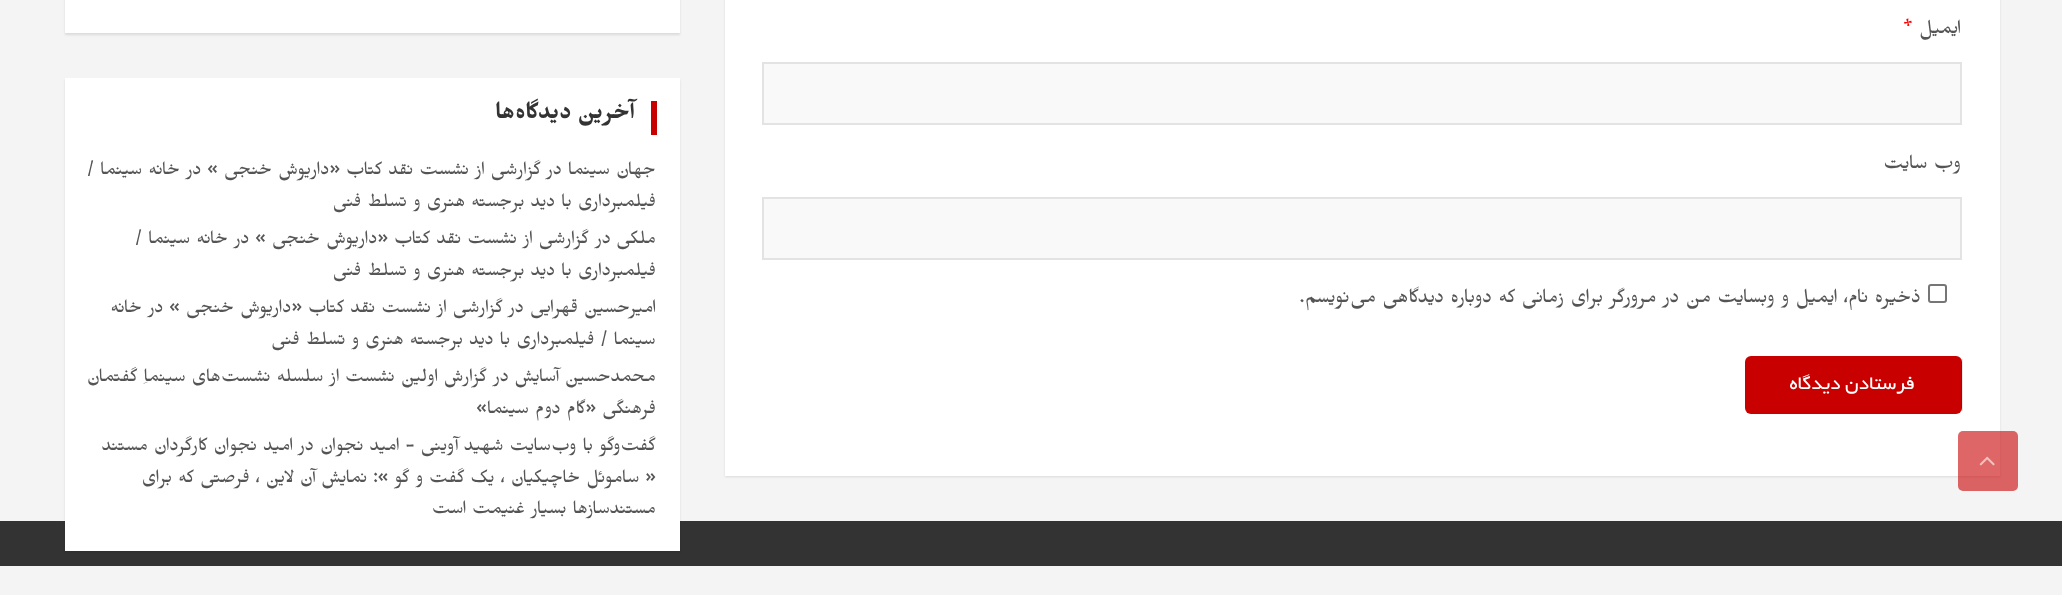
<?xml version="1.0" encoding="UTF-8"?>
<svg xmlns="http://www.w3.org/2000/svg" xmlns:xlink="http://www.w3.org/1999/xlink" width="2062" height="595">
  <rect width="100%" height="100%" fill="#f4f4f4" />
  <rect x="725" y="-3" width="1275" height="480" fill="#000000" fill-opacity="0.1" filter="blur(1px)" />
  <rect x="725" width="1275" height="476" fill="#ffffff" />
  <rect x="1958" y="431" width="60" height="60" rx="5" fill="#c80000" fill-opacity="0.6" />
  <image x="1979" y="456" width="16" height="10" xlink:href="image1.png" />
  <rect x="763" y="63" width="1198" height="61" fill="#f9f9f9" stroke="#e3e3e3" stroke-width="2" />
  <rect x="763" y="198" width="1198" height="61" fill="#f9f9f9" stroke="#e3e3e3" stroke-width="2" />
  <rect x="1929" y="285" width="17" height="17" rx="2" fill="none" stroke="#767676" stroke-width="2" />
  <rect x="1745" y="356" width="217" height="58" rx="6" fill="#c80000" />
  <rect x="1961" y="359" width="2" height="52" fill="#000000" fill-opacity="0.09" />
  <rect x="65" y="-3" width="615" height="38" fill="#000000" fill-opacity="0.1" filter="blur(1px)" />
  <rect x="65" width="615" height="33" fill="#ffffff" />
  <rect y="521" width="2062" height="45" fill="#333333" />
  <rect x="65" y="80" width="615" height="472" fill="#000000" fill-opacity="0.1" filter="blur(1px)" />
  <rect x="65" y="78" width="615" height="473" fill="#ffffff" />
  <rect x="651" y="101" width="6" height="34" fill="#c80000" />
  <text x="1961" y="33" style="font-family: Mirza; font-size: 24px; direction: rtl; fill: #555555">ایمیل</text>
  <text x="1903" y="33" style="font-family: Mirza; font-size: 24px; fill: #ff0000">*</text>
  <text x="1961" y="168" style="font-family: Mirza; font-size: 24px; direction: rtl; fill: #555555">وب‌ سایت</text>
  <text x="1921" y="302" style="font-family: Mirza; font-size: 24px; direction: rtl; fill: #555555">ذخیره نام، ایمیل و وبسایت من در مرورگر برای زمانی که دوباره دیدگاهی می‌نویسم.</text>
  <text x="1915" y="389" style="font-family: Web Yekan; font-size: 21px; direction: rtl; fill: #ffffff">فرستادن دیدگاه</text>
  <text x="635" y="118" style="font-family: Mirza; font-size: 27px; font-weight: bold; direction: rtl; fill: #333333">آخرین دیدگاه‌ها</text>
  <text x="656" y="174" style="font-family: Mirza; font-size: 22.5px; direction: rtl; fill: #555555">جهان سینما</text>
  <text x="562" y="174" style="font-family: Mirza; font-size: 22.5px; direction: rtl; fill: #555555">در</text>
  <text x="541" y="174" style="font-family: Mirza; font-size: 22.5px; direction: rtl; fill: #555555">گزارشی از نشست نقد کتاب «داریوش خنجی » در خانه سینما /</text>
  <text x="656" y="206" style="font-family: Mirza; font-size: 22.5px; direction: rtl; fill: #555555">فیلمبرداری با دید برجسته هنری و تسلط فنی</text>
  <text x="656" y="243" style="font-family: Mirza; font-size: 22.5px; direction: rtl; fill: #555555">ملکی</text>
  <text x="611" y="243" style="font-family: Mirza; font-size: 22.5px; direction: rtl; fill: #555555">در</text>
  <text x="589" y="243" style="font-family: Mirza; font-size: 22.5px; direction: rtl; fill: #555555">گزارشی از نشست نقد کتاب «داریوش خنجی » در خانه سینما /</text>
  <text x="656" y="275" style="font-family: Mirza; font-size: 22.5px; direction: rtl; fill: #555555">فیلمبرداری با دید برجسته هنری و تسلط فنی</text>
  <text x="656" y="312" style="font-family: Mirza; font-size: 22.5px; direction: rtl; fill: #555555">امیرحسین قهرایی</text>
  <text x="524" y="312" style="font-family: Mirza; font-size: 22.5px; direction: rtl; fill: #555555">در</text>
  <text x="503" y="312" style="font-family: Mirza; font-size: 22.5px; direction: rtl; fill: #555555">گزارشی از نشست نقد کتاب «داریوش خنجی » در خانه</text>
  <text x="656" y="344" style="font-family: Mirza; font-size: 22.5px; direction: rtl; fill: #555555">سینما / فیلمبرداری با دید برجسته هنری و تسلط فنی</text>
  <text x="656" y="381" style="font-family: Mirza; font-size: 22.5px; direction: rtl; fill: #555555">محمدحسین آسایش</text>
  <text x="509" y="381" style="font-family: Mirza; font-size: 22.5px; direction: rtl; fill: #555555">در</text>
  <text x="487" y="381" style="font-family: Mirza; font-size: 22.5px; direction: rtl; fill: #555555">گزارش اولین نشست از سلسله نشست‌های سینماِ گفتمان</text>
  <text x="656" y="413" style="font-family: Mirza; font-size: 22.5px; direction: rtl; fill: #555555">فرهنگی «گام دوم سینما»</text>
  <text x="656" y="450" style="font-family: Mirza; font-size: 22.5px; direction: rtl; fill: #555555">گفت‌وگو با وب‌سایت شهید آوینی - امید نجوان</text>
  <text x="314" y="450" style="font-family: Mirza; font-size: 22.5px; direction: rtl; fill: #555555">در</text>
  <text x="293" y="450" style="font-family: Mirza; font-size: 22.5px; direction: rtl; fill: #555555">امید نجوان کارگردان مستند</text>
  <text x="656" y="482" style="font-family: Mirza; font-size: 22.5px; direction: rtl; fill: #555555">« ساموئل خاچیکیان ، یک گفت و گو »: نمایش آن لاین ، فرصتی که برای</text>
  <text x="656" y="513" style="font-family: Mirza; font-size: 22.5px; direction: rtl; fill: #555555">مستندسازها بسیار غنیمت است</text>
</svg>
